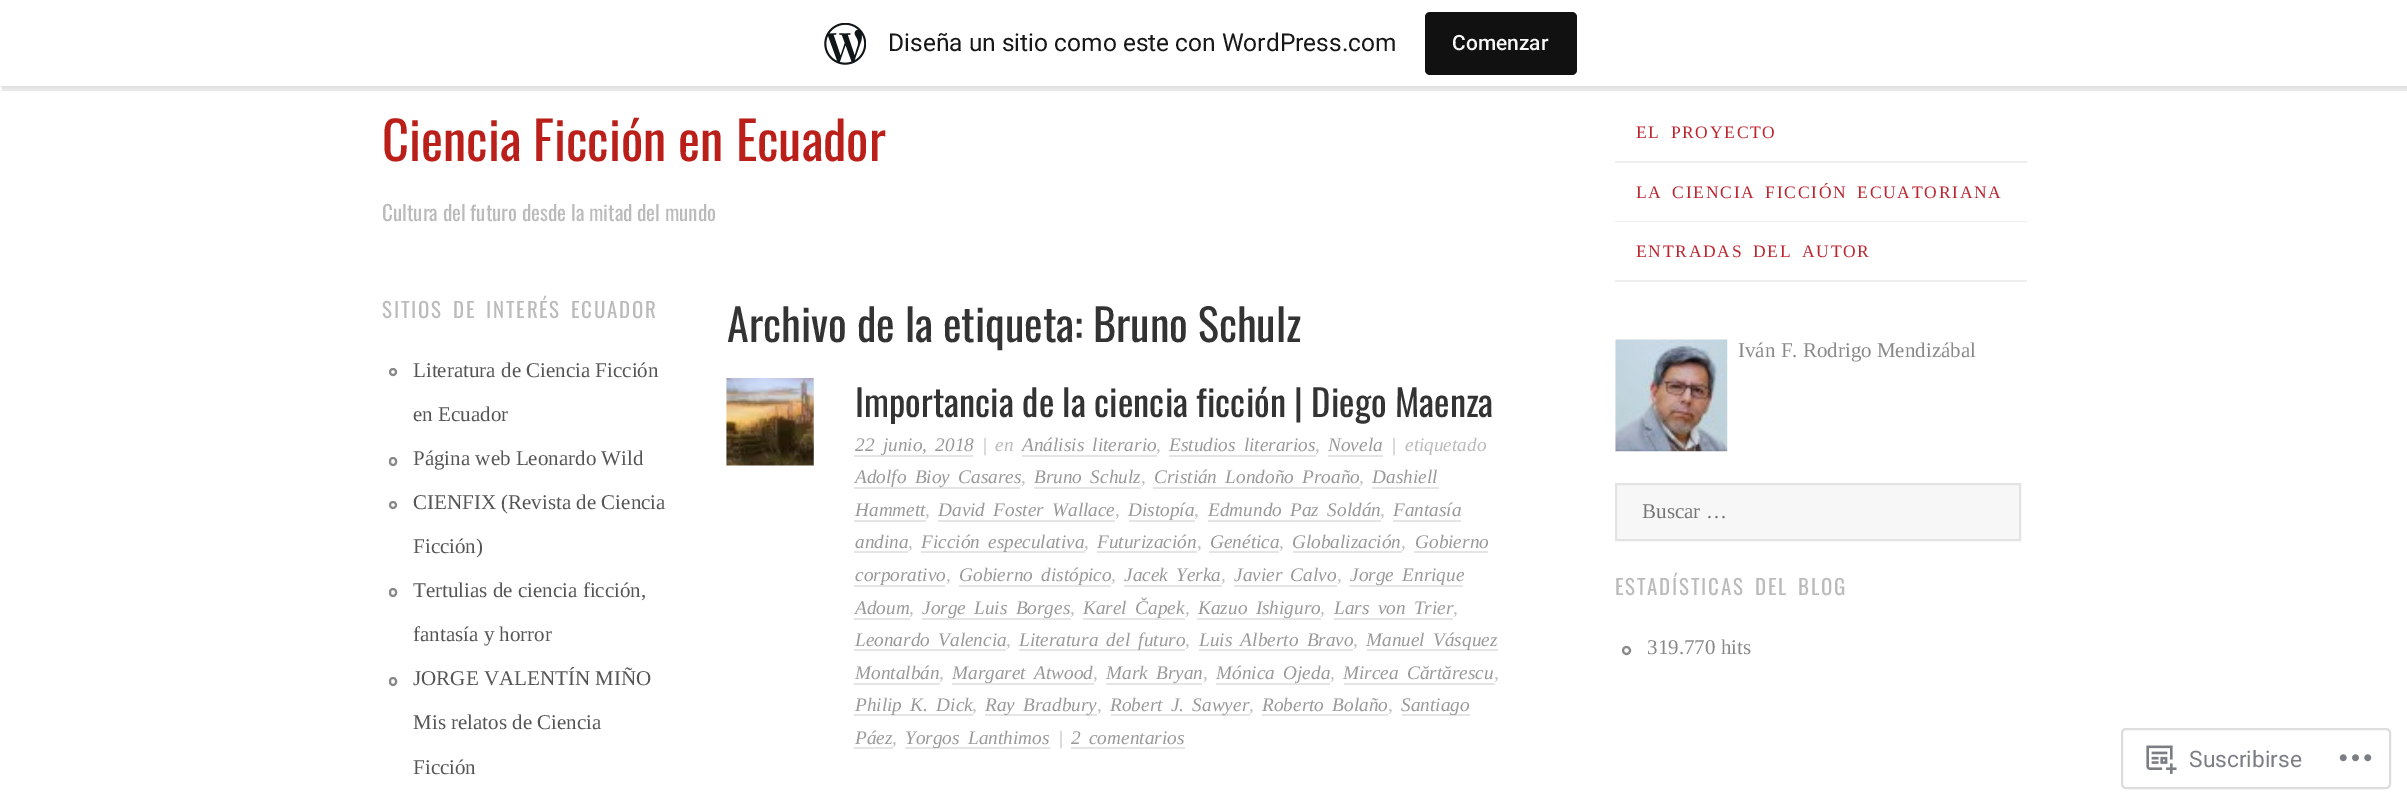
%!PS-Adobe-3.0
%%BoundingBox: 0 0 2407 806
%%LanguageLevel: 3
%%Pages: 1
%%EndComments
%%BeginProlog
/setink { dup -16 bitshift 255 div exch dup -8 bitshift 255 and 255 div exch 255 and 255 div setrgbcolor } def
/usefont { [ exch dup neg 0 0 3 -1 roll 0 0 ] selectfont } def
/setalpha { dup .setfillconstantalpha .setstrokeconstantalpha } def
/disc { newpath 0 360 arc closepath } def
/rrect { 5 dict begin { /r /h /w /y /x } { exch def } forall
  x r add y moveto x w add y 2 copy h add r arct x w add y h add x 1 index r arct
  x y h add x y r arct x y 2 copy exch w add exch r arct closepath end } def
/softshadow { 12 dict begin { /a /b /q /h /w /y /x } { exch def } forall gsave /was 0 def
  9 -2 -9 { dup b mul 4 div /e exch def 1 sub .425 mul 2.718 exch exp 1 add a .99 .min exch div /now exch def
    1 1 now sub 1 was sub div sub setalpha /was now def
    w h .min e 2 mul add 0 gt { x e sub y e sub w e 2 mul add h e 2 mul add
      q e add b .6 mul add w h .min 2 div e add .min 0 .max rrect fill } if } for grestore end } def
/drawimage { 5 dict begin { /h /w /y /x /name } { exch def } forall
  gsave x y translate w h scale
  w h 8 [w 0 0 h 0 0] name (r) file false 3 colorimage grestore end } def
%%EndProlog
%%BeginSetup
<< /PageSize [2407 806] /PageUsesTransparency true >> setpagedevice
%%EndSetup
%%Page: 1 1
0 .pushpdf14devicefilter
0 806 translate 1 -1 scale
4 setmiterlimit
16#FFFFFF setink
0 0 2407 806 rectfill
16#000000 setink
0 2 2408 86 0 2 0.05 softshadow
0.08 setalpha
2 86 moveto 2 91 lineto 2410 91 lineto 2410 5 lineto 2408 5 lineto 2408 86 lineto closepath fill
1 setalpha
16#FFFFFF setink
0 0 2407 86 rectfill
(img1.raw) 824 23 42 42 drawimage
/Roboto-Regular 24.5 usefont
16#171717 setink
888 51 moveto (Diseña un sitio como este con WordPress.com) show
16#111111 setink
1425 12 152 63 5 rrect fill
/Roboto-Medium 21 usefont
16#F6F7F7 setink
1452 50 moveto (Comenzar) show
/Oswald-Regular 52.5 usefont
16#BA1F1A setink
382 161 moveto (Ciencia Ficción en Ecuador) show
/Oswald-Regular 21 usefont
16#BBBBBB setink
382 221 moveto (Cultura del futuro desde la mitad del mundo) show
16#EEEEEE setink
1615 161 412 2 rectfill
/LiberationSerif-Regular 17.5 usefont
16#BB2530 setink
1636 138 moveto 3.5 0 32 1.75 0 (EL PROYECTO) awidthshow
16#EEEEEE setink
1615 221 412 1 rectfill
16#BB2530 setink
1636 198 moveto 3.5 0 32 1.75 0 (LA CIENCIA FICCIÓN ECUATORIANA) awidthshow
16#EEEEEE setink
1615 280 412 2 rectfill
16#BB2530 setink
1636 257 moveto 3.5 0 32 1.75 0 (ENTRADAS DEL AUTOR) awidthshow
/Oswald-Regular 21 usefont
16#BBBBBB setink
382 318 moveto 3.5 0 32 1.75 0 (SITIOS DE INTERÉS ECUADOR) awidthshow
16#888888 setink
2 setlinewidth
393 372 3 disc stroke
/LiberationSerif-Regular 21 usefont
16#555555 setink
413 377 moveto (Literatura de Ciencia Ficción) show
413 421 moveto (en Ecuador) show
16#888888 setink
390 458 6 7 3 rrect stroke
16#555555 setink
413 465 moveto (Página web Leonardo Wild) show
16#888888 setink
393 505 3 disc stroke
16#555555 setink
413 509 moveto (CIENFIX \(Revista de Ciencia) show
413 553 moveto (Ficción\)) show
16#888888 setink
390 589 6 7 3 rrect stroke
16#555555 setink
413 597 moveto (Tertulias de ciencia ficción,) show
413 641 moveto (fantasía y horror) show
16#888888 setink
390 678 6 7 3 rrect stroke
16#555555 setink
[
    [(JORGE VALENTÍN MIÑO) 413 685]
    [(Mis relatos de Ciencia) 413 729]
    [(Ficción) 413 774]
] { aload pop moveto show } forall
/Oswald-Regular 44.1 usefont
16#333333 setink
727 342 moveto (Archivo de la etiqueta: Bruno Schulz) show
(img2.raw) 726 378 88 88 drawimage
/Oswald-Regular 36.75 usefont
855 417 moveto (Importancia de la ciencia ficción | Diego Maenza) show
16#E5E5E5 setink
854 455 119 2 rectfill
/LiberationSerif-Italic 19.25 usefont
16#999999 setink
855 451 moveto 3.5 0 32 (22 junio, 2018) widthshow
16#BBBBBB setink
982 451 moveto (|) show
995 451 moveto (en) show
16#999999 setink
1022 451 moveto 3.5 0 32 (Análisis literario) widthshow
16#BBBBBB setink
1156 451 moveto (,) show
16#E5E5E5 setink
1022 455 135 2 rectfill
16#999999 setink
1169 451 moveto 3.5 0 32 (Estudios literarios) widthshow
16#BBBBBB setink
1315 451 moveto (,) show
16#E5E5E5 setink
1169 455 147 2 rectfill
1328 455 55 2 rectfill
16#999999 setink
1328 451 moveto (Novela) show
16#BBBBBB setink
1391 451 moveto (|) show
1405 451 moveto (etiquetado) show
16#E5E5E5 setink
854 487 166 2 rectfill
16#999999 setink
855 483 moveto 3.5 0 32 (Adolfo Bioy Casares) widthshow
16#BBBBBB setink
1021 483 moveto (,) show
16#999999 setink
1034 483 moveto 3.5 0 32 (Bruno Schulz) widthshow
16#BBBBBB setink
1141 483 moveto (,) show
16#E5E5E5 setink
1034 487 107 2 rectfill
16#999999 setink
1154 483 moveto 3.5 0 32 (Cristián Londoño Proaño) widthshow
16#BBBBBB setink
1359 483 moveto (,) show
16#E5E5E5 setink
1153 487 207 2 rectfill
1372 487 67 2 rectfill
16#999999 setink
1372 483 moveto (Dashiell) show
855 516 moveto (Hammett) show
16#BBBBBB setink
925 516 moveto (,) show
16#E5E5E5 setink
854 520 72 2 rectfill
16#999999 setink
938 516 moveto 3.5 0 32 (David Foster Wallace) widthshow
16#BBBBBB setink
1115 516 moveto (,) show
16#E5E5E5 setink
938 520 177 2 rectfill
1129 520 66 2 rectfill
16#999999 setink
1128 516 moveto (Distopía) show
16#BBBBBB setink
1194 516 moveto (,) show
16#999999 setink
1208 516 moveto 3.5 0 32 (Edmundo Paz Soldán) widthshow
16#BBBBBB setink
1380 516 moveto (,) show
16#E5E5E5 setink
1208 520 173 2 rectfill
1393 520 68 2 rectfill
16#999999 setink
1393 516 moveto (Fantasía) show
855 548 moveto (andina) show
16#BBBBBB setink
908 548 moveto (,) show
16#E5E5E5 setink
854 551 54 2 rectfill
921 551 164 2 rectfill
16#999999 setink
921 548 moveto 3.5 0 32 (Ficción especulativa) widthshow
16#BBBBBB setink
1084 548 moveto (,) show
16#999999 setink
1097 548 moveto (Futurización) show
16#BBBBBB setink
1197 548 moveto (,) show
16#E5E5E5 setink
1097 551 100 2 rectfill
16#999999 setink
1210 548 moveto (Genética) show
16#BBBBBB setink
1279 548 moveto (,) show
16#E5E5E5 setink
1209 551 70 2 rectfill
16#999999 setink
1292 548 moveto (Globalización) show
16#BBBBBB setink
1401 548 moveto (,) show
16#E5E5E5 setink
1293 551 109 2 rectfill
1414 551 74 2 rectfill
16#999999 setink
1415 548 moveto (Gobierno) show
16#E5E5E5 setink
854 585 91 2 rectfill
16#999999 setink
855 581 moveto (corporativo) show
16#BBBBBB setink
946 581 moveto (,) show
16#E5E5E5 setink
959 585 152 2 rectfill
16#999999 setink
959 581 moveto 3.5 0 32 (Gobierno distópico) widthshow
16#BBBBBB setink
1111 581 moveto (,) show
16#999999 setink
1124 581 moveto 3.5 0 32 (Jacek Yerka) widthshow
16#BBBBBB setink
1221 581 moveto (,) show
16#E5E5E5 setink
1124 585 98 2 rectfill
16#999999 setink
1234 581 moveto 3.5 0 32 (Javier Calvo) widthshow
16#BBBBBB setink
1337 581 moveto (,) show
16#E5E5E5 setink
1234 585 103 2 rectfill
1349 585 114 2 rectfill
16#999999 setink
1350 581 moveto 3.5 0 32 (Jorge Enrique) widthshow
855 614 moveto (Adoum) show
16#BBBBBB setink
909 614 moveto (,) show
16#E5E5E5 setink
854 618 56 2 rectfill
922 618 149 2 rectfill
16#999999 setink
922 614 moveto 3.5 0 32 (Jorge Luis Borges) widthshow
16#BBBBBB setink
1070 614 moveto (,) show
16#E5E5E5 setink
1083 618 102 2 rectfill
16#999999 setink
1083 614 moveto 3.5 0 32 (Karel Čapek) widthshow
16#BBBBBB setink
1185 614 moveto (,) show
16#E5E5E5 setink
1197 618 124 2 rectfill
16#999999 setink
1198 614 moveto 3.5 0 32 (Kazuo Ishiguro) widthshow
16#BBBBBB setink
1320 614 moveto (,) show
16#999999 setink
1334 614 moveto 3.5 0 32 (Lars von Trier) widthshow
16#BBBBBB setink
1453 614 moveto (,) show
16#E5E5E5 setink
1334 618 119 2 rectfill
16#999999 setink
855 646 moveto 3.5 0 32 (Leonardo Valencia) widthshow
16#BBBBBB setink
1006 646 moveto (,) show
16#E5E5E5 setink
854 649 152 2 rectfill
1019 649 166 2 rectfill
16#999999 setink
1019 646 moveto 3.5 0 32 (Literatura del futuro) widthshow
16#BBBBBB setink
1185 646 moveto (,) show
16#999999 setink
1199 646 moveto 3.5 0 32 (Luis Alberto Bravo) widthshow
16#BBBBBB setink
1353 646 moveto (,) show
16#E5E5E5 setink
1199 649 154 2 rectfill
1367 649 131 2 rectfill
16#999999 setink
1366 646 moveto 3.5 0 32 (Manuel Vásquez) widthshow
855 679 moveto (Montalbán) show
16#BBBBBB setink
939 679 moveto (,) show
16#E5E5E5 setink
854 683 86 2 rectfill
952 683 142 2 rectfill
16#999999 setink
952 679 moveto 3.5 0 32 (Margaret Atwood) widthshow
16#BBBBBB setink
1093 679 moveto (,) show
16#E5E5E5 setink
1106 683 96 2 rectfill
16#999999 setink
1106 679 moveto 3.5 0 32 (Mark Bryan) widthshow
16#BBBBBB setink
1203 679 moveto (,) show
16#E5E5E5 setink
1216 683 114 2 rectfill
16#999999 setink
1216 679 moveto 3.5 0 32 (Mónica Ojeda) widthshow
16#BBBBBB setink
1330 679 moveto (,) show
16#999999 setink
1343 679 moveto 3.5 0 32 (Mircea Cărtărescu) widthshow
16#BBBBBB setink
1494 679 moveto (,) show
16#E5E5E5 setink
1344 683 151 2 rectfill
854 714 119 2 rectfill
16#999999 setink
855 711 moveto 3.5 0 32 (Philip K. Dick) widthshow
16#BBBBBB setink
972 711 moveto (,) show
16#E5E5E5 setink
985 714 112 2 rectfill
16#999999 setink
985 711 moveto 3.5 0 32 (Ray Bradbury) widthshow
16#BBBBBB setink
1097 711 moveto (,) show
16#E5E5E5 setink
1111 714 139 2 rectfill
16#999999 setink
1110 711 moveto 3.5 0 32 (Robert J. Sawyer) widthshow
16#BBBBBB setink
1249 711 moveto (,) show
16#999999 setink
1262 711 moveto 3.5 0 32 (Roberto Bolaño) widthshow
16#BBBBBB setink
1388 711 moveto (,) show
16#E5E5E5 setink
1262 714 126 2 rectfill
1402 714 68 2 rectfill
16#999999 setink
1401 711 moveto (Santiago) show
855 744 moveto (Páez) show
16#BBBBBB setink
892 744 moveto (,) show
16#E5E5E5 setink
854 747 39 2 rectfill
905 747 145 2 rectfill
16#999999 setink
905 744 moveto 3.5 0 32 (Yorgos Lanthimos) widthshow
16#BBBBBB setink
1058 744 moveto (|) show
16#999999 setink
1071 744 moveto 3.5 0 32 (2 comentarios) widthshow
16#E5E5E5 setink
1071 747 114 2 rectfill
(img3.raw) 1615 339 113 113 drawimage
/LiberationSerif-Regular 21 usefont
16#888888 setink
1738 357 moveto (Iván F. Rodrigo Mendizábal) show
16#F7F7F7 setink
1616 484 moveto 2020 484 lineto 2020 540 lineto 1616 540 lineto closepath gsave fill grestore
16#E3E3E3 setink
stroke
16#757575 setink
1642 518 moveto (Buscar …) show
/Oswald-Regular 21 usefont
16#BBBBBB setink
1615 595 moveto 3.5 0 32 1.75 0 (ESTADÍSTICAS DEL BLOG) awidthshow
16#888888 setink
1626.5 650.5 3.5 disc stroke
/LiberationSerif-Regular 21 usefont
1647 654 moveto (319.770 hits) show
16#DDDDDF setink
2122 729 268 59 4 rrect stroke
(img4.raw) 2146 745 31 29 drawimage
/Roboto-Regular 22.75 usefont
16#7B7F85 setink
2189 767 moveto (Suscribirse) show
(img5.raw) 2339 754 33 8 drawimage
.poppdf14devicefilter showpage
%%EOF
